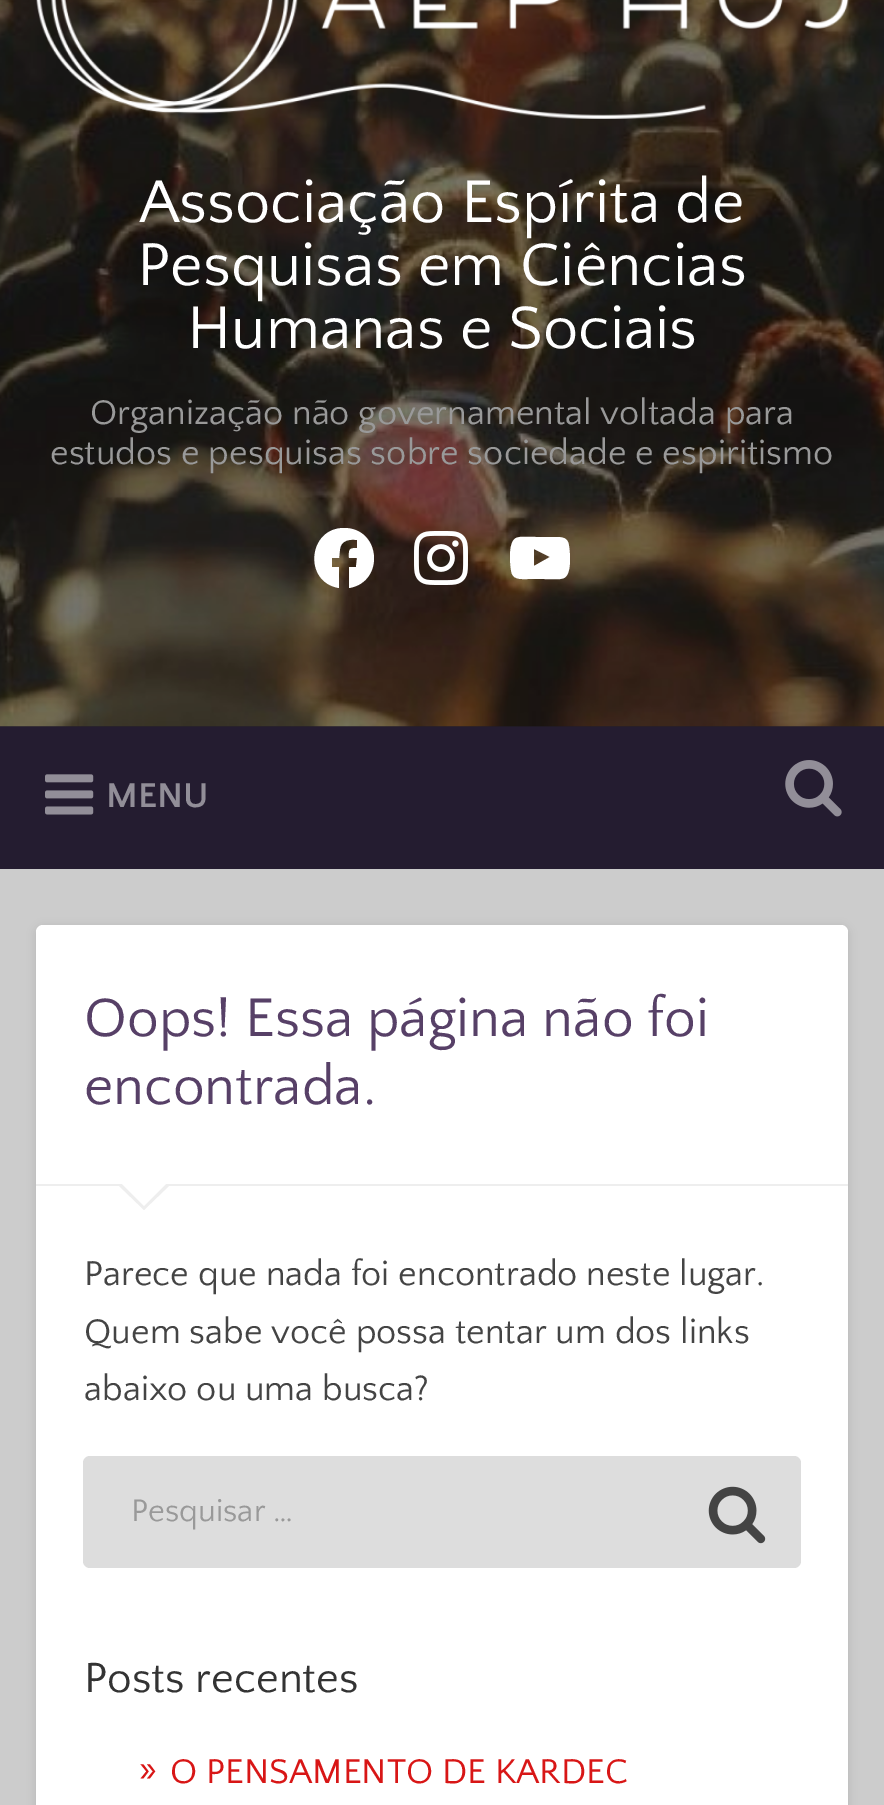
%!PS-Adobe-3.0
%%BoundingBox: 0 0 884 1805
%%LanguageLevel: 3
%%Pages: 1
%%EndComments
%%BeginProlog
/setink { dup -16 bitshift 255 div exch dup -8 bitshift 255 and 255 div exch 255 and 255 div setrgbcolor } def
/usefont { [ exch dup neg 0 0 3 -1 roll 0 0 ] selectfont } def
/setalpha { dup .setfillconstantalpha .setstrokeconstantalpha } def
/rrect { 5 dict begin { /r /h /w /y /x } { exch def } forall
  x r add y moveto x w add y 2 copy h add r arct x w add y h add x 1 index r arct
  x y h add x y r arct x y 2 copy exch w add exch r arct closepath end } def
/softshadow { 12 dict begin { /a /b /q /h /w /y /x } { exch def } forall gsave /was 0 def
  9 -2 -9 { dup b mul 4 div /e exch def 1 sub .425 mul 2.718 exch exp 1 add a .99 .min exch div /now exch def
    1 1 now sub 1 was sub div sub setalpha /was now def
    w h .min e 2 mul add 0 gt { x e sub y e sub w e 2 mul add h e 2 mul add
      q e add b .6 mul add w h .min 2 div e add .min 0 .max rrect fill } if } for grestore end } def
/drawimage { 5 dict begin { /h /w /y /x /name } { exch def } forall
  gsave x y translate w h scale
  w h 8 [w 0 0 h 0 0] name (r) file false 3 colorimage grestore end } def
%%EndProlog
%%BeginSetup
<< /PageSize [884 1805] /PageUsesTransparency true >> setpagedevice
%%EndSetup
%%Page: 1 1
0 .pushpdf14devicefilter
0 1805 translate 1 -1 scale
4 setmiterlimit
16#CCCCCC setink
0 0 884 1805 rectfill
16#221C2B setink
0 726 884 1 rectfill
(img1.raw) 0 0 884 727 drawimage
(img2.raw) 36 0 813 119 drawimage
/QuattrocentoSans-Regular 63 usefont
16#FFFFFF setink
[
    [(Associação Espírita de) 139 222]
    [(Pesquisas em Ciências) 137 285]
    [(Humanas e Sociais) 187 348]
] { aload pop moveto show } forall
/QuattrocentoSans-Regular 36 usefont
16#999999 setink
90 424 moveto (Organização não governamental voltada para) show
50 464 moveto (estudos e pesquisas sobre sociedade e espiritismo) show
16#FFFFFF setink
344 528 moveto 308 528 303 582 339 588 curveto 339 567 lineto 332 567 lineto 332 558 lineto 339 558 lineto 340 549 lineto 341 540 350 539 357 540 curveto 357 548 lineto 348 548 349 550 349 558 curveto 357 558 lineto 356 567 lineto 349 567 lineto 349 588 lineto 385 582 381 528 344 528 curveto closepath fill
(img3.raw) 414 531 54 54 drawimage
569 546 moveto 568 537 562 537 554 537 curveto 536 537 lineto 530 537 520 536 516 538 curveto 508 542 510 563 511 570 curveto 512 580 520 579 528 579 curveto 544 579 lineto 550 579 560 580 564 578 curveto 572 574 570 553 569 546 curveto closepath 534 566 moveto 534 549 lineto 550 557 lineto closepath fill
16#241C30 setink
0 727 884 142 rectfill
(img4.raw) 45 774 49 41 drawimage
/QuattrocentoSans-Bold 36 usefont
16#928E98 setink
106 807 moveto (MENU) show
(img5.raw) 785 760 57 57 drawimage
16#000000 setink
36 927 812 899 7 4.5 0.1 softshadow
16#FFFFFF setink
36 925 812 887 7 rrect fill
16#EEEEEE setink
36 1184 812 2 rectfill
/QuattrocentoSans-Regular 56.75 usefont
16#574067 setink
84 1036 moveto (Oops! Essa página não foi) show
84 1104 moveto (encontrada.) show
16#EEEEEE setink
117 1184 moveto 171 1184 lineto 144 1210 lineto closepath fill
16#FFFFFF setink
119 1181 moveto 169 1181 lineto 144 1206 lineto closepath fill
/QuattrocentoSans-Regular 36 usefont
16#444444 setink
[
    [(Parece que nada foi encontrado neste lugar.) 84 1285]
    [(Quem sabe você possa tentar um dos links) 84 1343]
    [(abaixo ou uma busca?) 84 1400]
] { aload pop moveto show } forall
16#DDDDDD setink
83 1456 718 112 7 rrect fill
/QuattrocentoSans-Regular 32.5 usefont
16#999999 setink
131 1521 moveto (Pesquisar …) show
(img6.raw) 708 1486 58 58 drawimage
/QuattrocentoSans-Regular 44 usefont
16#333333 setink
84 1692 moveto (Posts recentes) show
/QuattrocentoSans-Regular 40 usefont
16#D81616 setink
138 1781 moveto (») show
/QuattrocentoSans-Regular 36 usefont
170 1783 moveto (O PENSAMENTO DE KARDEC) show
.poppdf14devicefilter showpage
%%EOF
